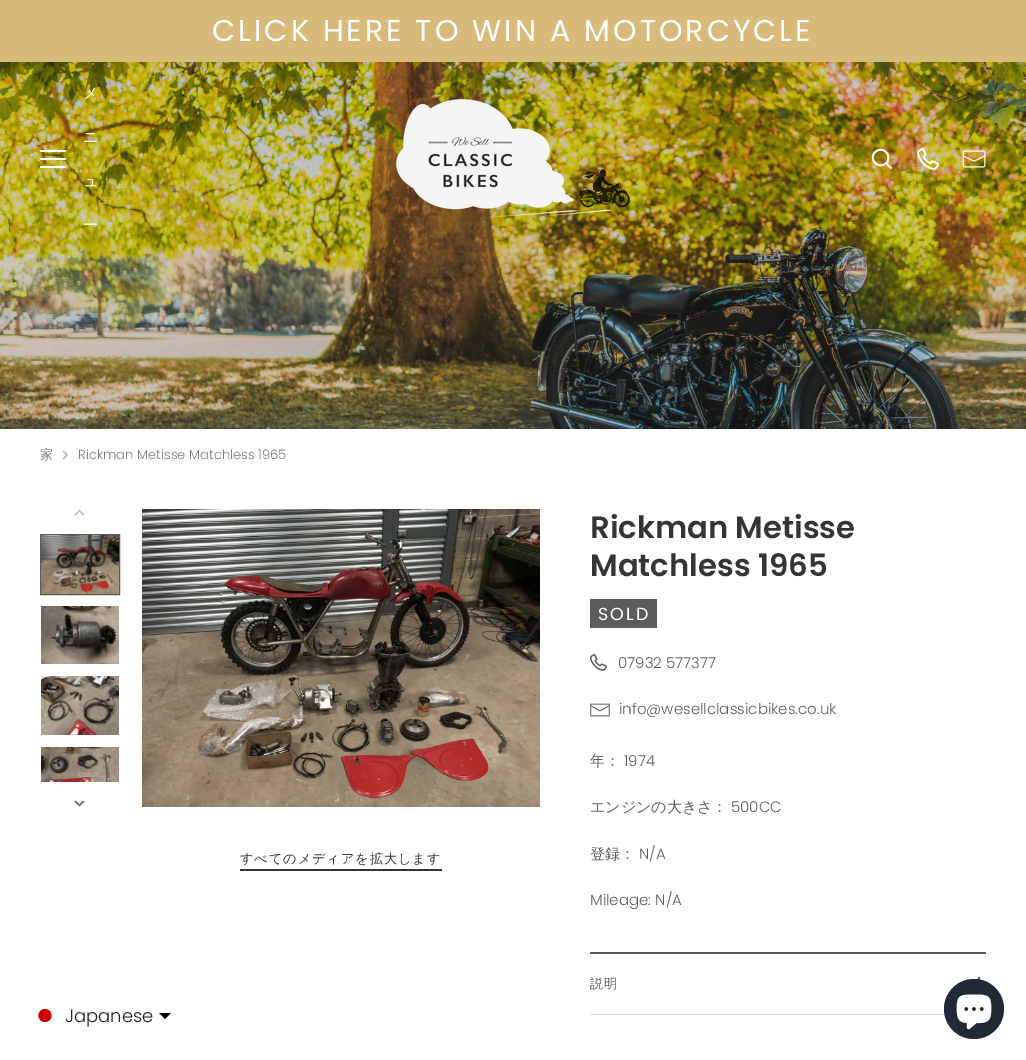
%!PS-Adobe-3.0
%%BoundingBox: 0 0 1026 1060
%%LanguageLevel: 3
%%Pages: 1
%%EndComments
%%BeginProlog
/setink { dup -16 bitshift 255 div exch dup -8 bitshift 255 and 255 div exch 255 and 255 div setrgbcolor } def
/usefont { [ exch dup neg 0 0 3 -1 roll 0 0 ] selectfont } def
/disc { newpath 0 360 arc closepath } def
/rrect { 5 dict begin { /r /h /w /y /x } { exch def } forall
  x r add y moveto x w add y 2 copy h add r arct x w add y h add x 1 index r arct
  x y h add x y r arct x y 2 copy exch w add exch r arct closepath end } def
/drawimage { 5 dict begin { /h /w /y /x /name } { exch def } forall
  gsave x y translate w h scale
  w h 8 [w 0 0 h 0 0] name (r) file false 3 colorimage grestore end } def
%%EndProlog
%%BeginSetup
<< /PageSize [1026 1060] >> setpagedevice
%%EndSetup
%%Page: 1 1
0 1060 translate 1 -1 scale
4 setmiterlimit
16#FFFFFF setink
0 0 1026 1060 rectfill
16#D8BA7A setink
0 0 1026 62 rectfill
/Poppins-Regular 30 usefont
16#FFFFFF setink
212 41 moveto 3 0 (CLICK HERE TO WIN A MOTORCYCLE) ashow
(img5.raw) 0 62 1026 367 drawimage
40 150 26 2 1 rrect fill
40 158 26 2 1 rrect fill
40 166 26 2 1 rrect fill
/WenQuanYiZenHei-Medium 15 usefont
[
    [(メ) 83 98]
    [(ニ) 83 142]
    [(ュ) 83 186]
    [(ー) 83 230]
] { aload pop moveto show } forall
(img1.raw) 396 99 234 119 drawimage
(img2.raw) 871 148 22 22 drawimage
(img3.raw) 917 148 22 22 drawimage
(img4.raw) 962 150 24 18 drawimage
/WenQuanYiZenHei-Medium 13.1 usefont
16#7D7D7D setink
40 459 moveto (家) show
(img6.raw) 62 450 6 10 drawimage
/Poppins-Light 13.1 usefont
78 459 moveto (Rickman Metisse Matchless 1965) show
(img7.raw) 74 509 11 7 drawimage
(img8.raw) 74 800 11 7 drawimage
16#5C5C5C setink
40.5 534.5 79 60 rectstroke
(img9.raw) 41 535 78 59 drawimage
(img10.raw) 41 606 78 58 drawimage
(img11.raw) 41 676 78 59 drawimage
(img12.raw) 41 747 78 35 drawimage
(img13.raw) 142 509 398 298 drawimage
/WenQuanYiZenHei-Medium 13.1 usefont
16#343534 setink
240 863 moveto 1 0 (すべてのメディアを拡大します) ashow
240 869 202 2 rectfill
/Poppins-SemiBold 30.75 usefont
590 538 moveto (Rickman Metisse) show
590 576 moveto (Matchless 1965) show
16#5C5C5C setink
590 599 67 29 rectfill
/Poppins-Regular 17.5 usefont
16#FFFFFF setink
598 620 moveto 2 0 (SOLD) ashow
(img14.raw) 590 654 17 17 drawimage
/Poppins-Light 15 usefont
16#5C5C5C setink
618 668 moveto (07932 577377) show
(img15.raw) 590 703 20 14 drawimage
619 714 moveto (info@wesellclassicbikes.co.uk) show
/WenQuanYiZenHei-Medium 15 usefont
590 766 moveto (年：) show
/Poppins-Light 15 usefont
624 766 moveto (1974) show
/WenQuanYiZenHei-Medium 15 usefont
590 812 moveto (エンジンの大きさ：) show
/Poppins-Light 15 usefont
731 812 moveto (500CC) show
/WenQuanYiZenHei-Medium 15 usefont
590 859 moveto (登録：) show
/Poppins-Light 15 usefont
639 859 moveto (N/A) show
590 905 moveto (Mileage: N/A) show
590 952 396 2 rectfill
16#DEDEDE setink
590 1014 355 1 rectfill
/WenQuanYiZenHei-Medium 13.1 usefont
16#5C5C5C setink
590 988 moveto 1 0 (説明) ashow
978 977 2 3 rectfill
16#D30000 setink
45 1015.5 6.5 disc fill
/Poppins-Light 18 usefont
16#202223 setink
65 1022 moveto (Japanese) show
16#000000 setink
159 1013 moveto 171 1013 lineto 165 1019 lineto closepath fill
16#202A36 setink
974 1009 30 disc fill
(img16.raw) 956 994 36 36 drawimage
showpage
%%EOF
